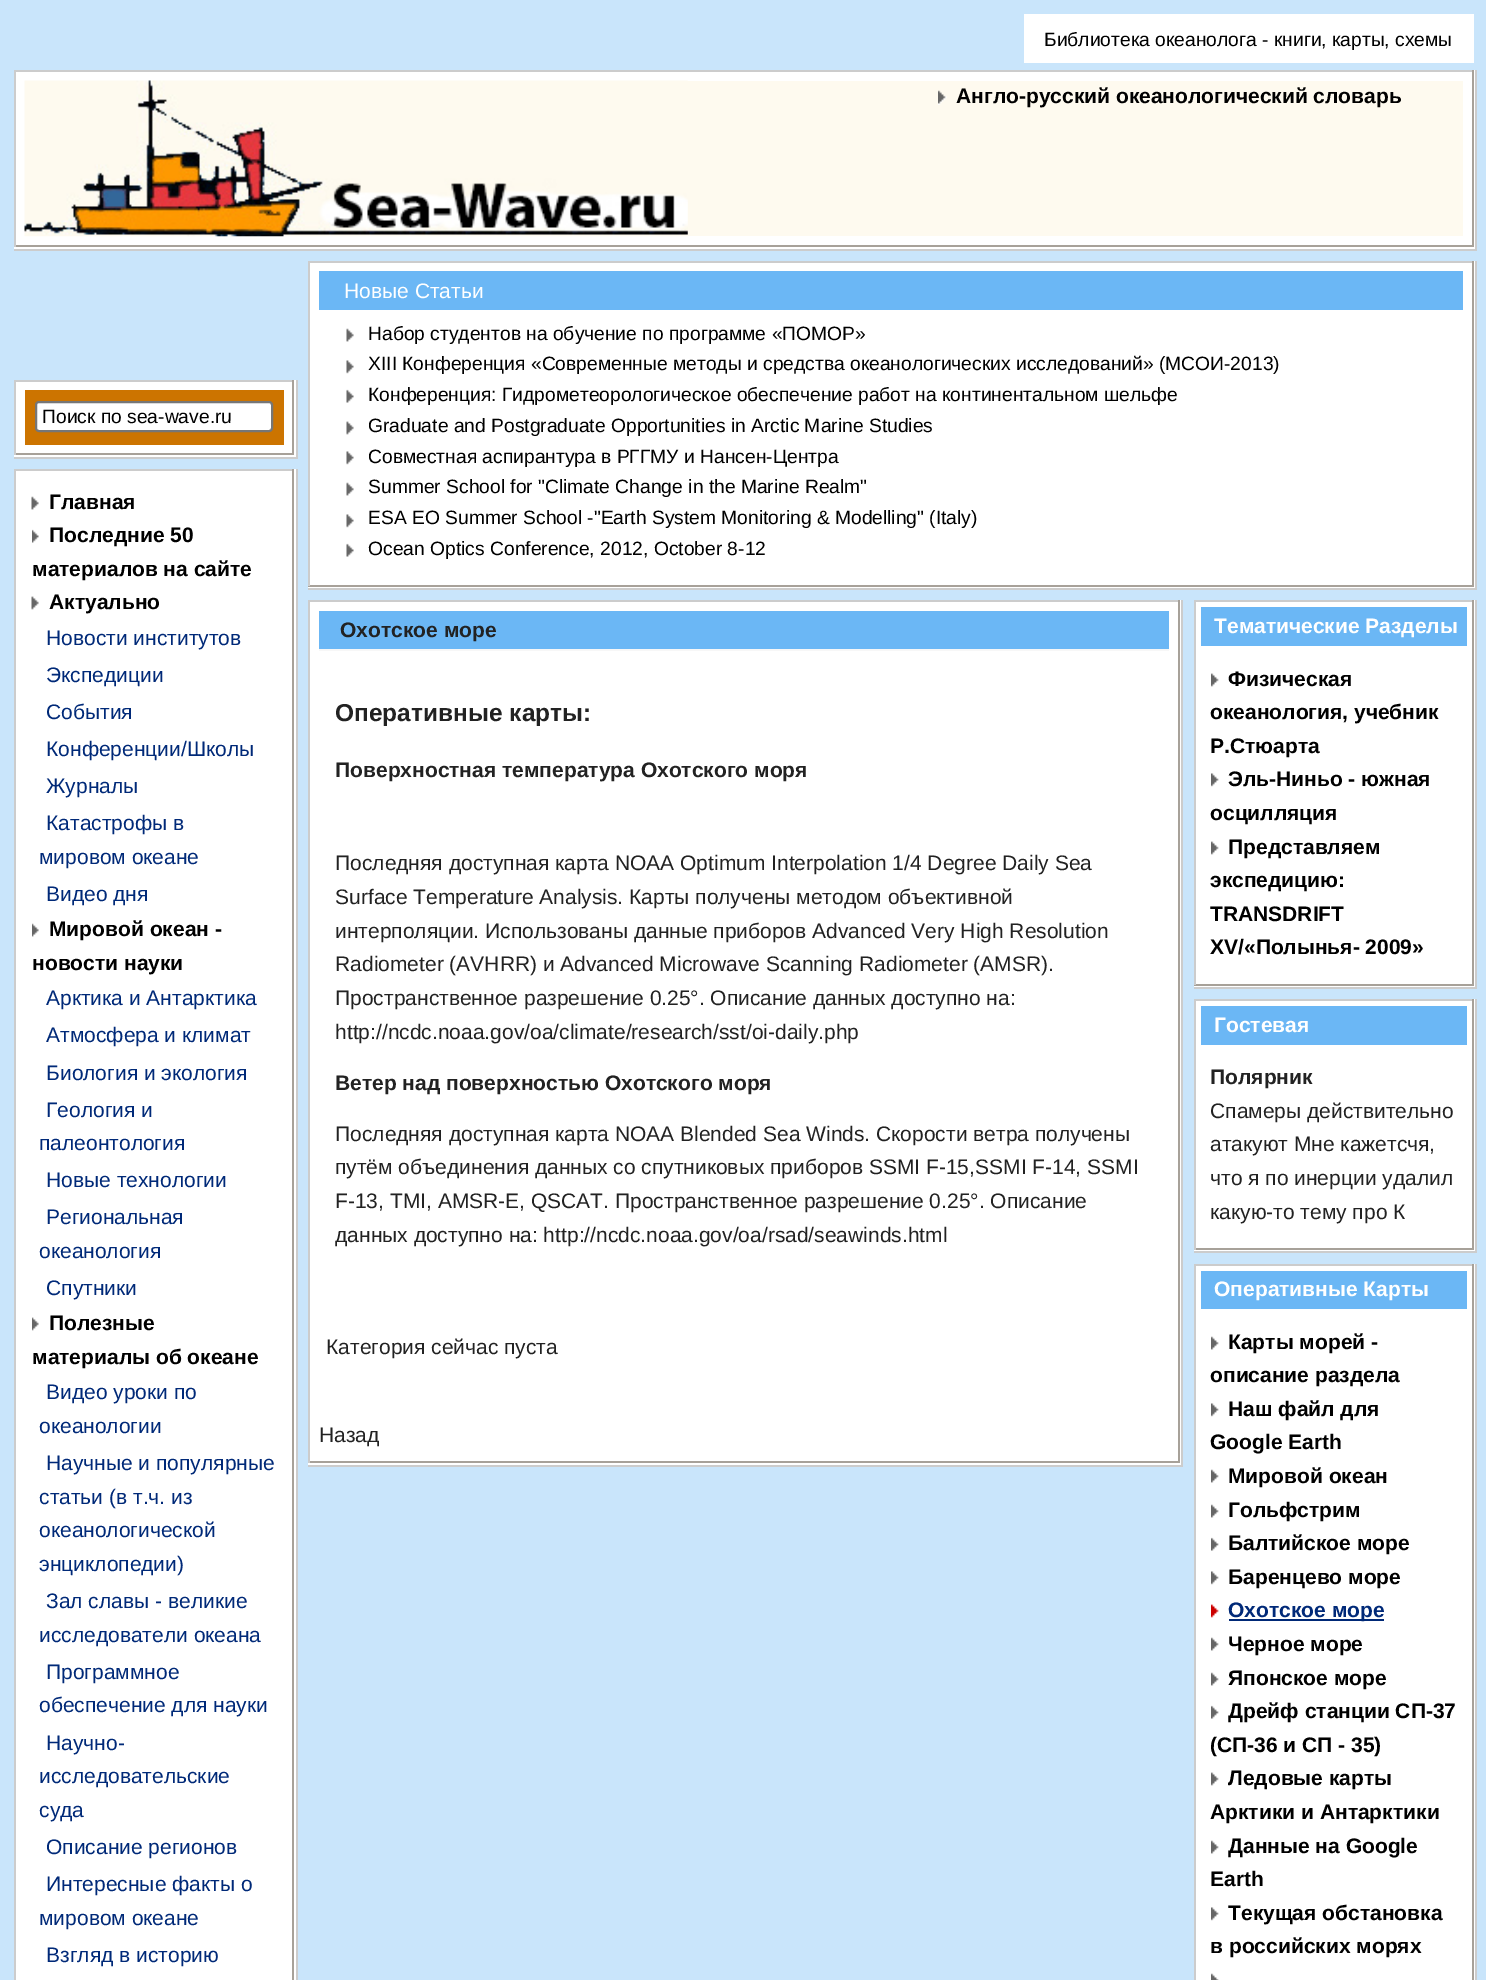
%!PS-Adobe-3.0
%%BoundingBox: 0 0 1486 1980
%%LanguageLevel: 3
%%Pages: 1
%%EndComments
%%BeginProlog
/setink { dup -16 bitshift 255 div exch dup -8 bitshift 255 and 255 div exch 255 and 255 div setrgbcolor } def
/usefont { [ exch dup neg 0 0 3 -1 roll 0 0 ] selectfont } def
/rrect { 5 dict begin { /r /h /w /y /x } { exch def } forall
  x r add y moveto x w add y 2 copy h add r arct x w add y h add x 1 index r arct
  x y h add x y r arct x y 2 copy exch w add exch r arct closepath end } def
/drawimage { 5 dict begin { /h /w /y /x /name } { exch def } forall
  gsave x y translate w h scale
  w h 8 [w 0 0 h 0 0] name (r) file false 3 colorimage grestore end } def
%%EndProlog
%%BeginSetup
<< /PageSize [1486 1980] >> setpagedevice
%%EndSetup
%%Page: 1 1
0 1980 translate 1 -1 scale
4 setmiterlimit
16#C9E5FB setink
0 0 1486 1980 rectfill
16#FFFFFF setink
1024 14 450 49 rectfill
/LiberationSans-Regular 19.25 usefont
16#000000 setink
1044 46 moveto (Библиотека океанолога - книги, карты, схемы) show
[
    [14 70 1461 179 16#FFFFFF]
    [1475 70 2 180 16#CCCCCC]
    [14 249 1463 2 16#CCCCCC]
    [14 70 1460 2 16#CCCCCC]
    [1472 70 2 177 16#A7A199]
    [14 245 1460 2 16#A7A199]
    [14 70 2 177 16#CCCCCC]
    [687 81 776 155 16#FEFAEF]
] { aload pop setink rectfill } forall
(img1.raw) 24 80 664 157 drawimage
(img2.raw) 938 90 9 15 drawimage
/LiberationSans-Bold 21 usefont
16#000000 setink
956 103 moveto (Англо-русский океанологический словарь) show
[
    [14 380 282 77 16#FFFFFF]
    [296 380 2 79 16#CCCCCC]
    [14 457 284 2 16#CCCCCC]
    [14 380 280 2 16#CCCCCC]
    [292 380 2 75 16#A7A199]
    [14 453 280 2 16#A7A199]
    [14 380 2 75 16#CCCCCC]
    [25 390 259 55 16#CC7400]
] { aload pop setink rectfill } forall
16#FFFFFF setink
36 402 236 29 3 rrect gsave fill grestore
16#767676 setink
2 setlinewidth
stroke
/LiberationSans-Regular 19.25 usefont
16#000000 setink
42 423 moveto (Поиск по sea-wave.ru) show
[
    [16 469 280 1511 16#FFFFFF]
    [296 469 2 1511 16#CCCCCC]
    [14 469 280 2 16#CCCCCC]
    [292 469 2 1511 16#A7A199]
    [14 469 2 1511 16#CCCCCC]
] { aload pop setink rectfill } forall
(img3.raw) 31 496 8 14 drawimage
/LiberationSans-Bold 21 usefont
16#000000 setink
49 509 moveto (Главная) show
(img4.raw) 32 529 7 14 drawimage
49 542 moveto (Последние 50) show
32 576 moveto (материалов на сайте) show
(img5.raw) 31 596 8 14 drawimage
49 609 moveto (Актуально) show
/LiberationSans-Regular 21 usefont
16#002978 setink
[
    [(Новости институтов) 46 645]
    [(Экспедиции) 46 682]
    [(События) 46 719]
    [(Конференции/Школы) 46 756]
    [(Журналы) 46 793]
    [(Катастрофы в) 46 830]
    [(мировом океане) 39 864]
    [(Видео дня) 46 901]
] { aload pop moveto show } forall
(img6.raw) 32 923 7 14 drawimage
/LiberationSans-Bold 21 usefont
16#000000 setink
49 936 moveto (Мировой океан -) show
32 970 moveto (новости науки) show
/LiberationSans-Regular 21 usefont
16#002978 setink
[
    [(Арктика и Антарктика) 46 1005]
    [(Атмосфера и климат) 46 1042]
    [(Биология и экология) 46 1080]
    [(Геология и) 46 1117]
    [(палеонтология) 39 1150]
    [(Новые технологии) 46 1187]
    [(Региональная) 46 1224]
    [(океанология) 39 1258]
    [(Спутники) 46 1295]
] { aload pop moveto show } forall
(img7.raw) 32 1317 7 14 drawimage
/LiberationSans-Bold 21 usefont
16#000000 setink
49 1330 moveto (Полезные) show
32 1364 moveto (материалы об океане) show
/LiberationSans-Regular 21 usefont
16#002978 setink
[
    [(Видео уроки по) 46 1399]
    [(океанологии) 39 1433]
    [(Научные и популярные) 46 1470]
    [(статьи \(в т.ч. из) 39 1504]
    [(океанологической) 39 1537]
    [(энциклопедии\)) 39 1571]
    [(Зал славы - великие) 46 1608]
    [(исследователи океана) 39 1642]
    [(Программное) 46 1679]
    [(обеспечение для науки) 39 1712]
    [(Научно-) 46 1750]
    [(исследовательские) 39 1783]
    [(суда) 39 1817]
    [(Описание регионов) 46 1854]
    [(Интересные факты о) 46 1891]
    [(мировом океане) 39 1925]
    [(Взгляд в историю) 46 1962]
] { aload pop moveto show } forall
[
    [308 261 1167 327 16#FFFFFF]
    [1475 261 2 329 16#CCCCCC]
    [308 588 1169 2 16#CCCCCC]
    [308 261 1166 2 16#CCCCCC]
    [1472 261 2 325 16#A7A199]
    [308 585 1166 2 16#A7A199]
    [308 261 2 325 16#CCCCCC]
    [319 271 1144 39 16#6BB7F5]
] { aload pop setink rectfill } forall
16#FFFFFF setink
344 298 moveto (Новые Статьи) show
(img3.raw) 346 328 8 14 drawimage
/LiberationSans-Regular 19.25 usefont
16#000000 setink
368 340 moveto (Набор студентов на обучение по программе «ПОМОР») show
(img8.raw) 346 360 8 14 drawimage
368 370 moveto (XIII Конференция «Современные методы и средства океанологических исследований» \(МСОИ-2013\)) show
(img9.raw) 346 389 8 14 drawimage
368 401 moveto (Конференция: Гидрометеорологическое обеспечение работ на континентальном шельфе) show
(img5.raw) 346 421 8 14 drawimage
368 432 moveto (Graduate and Postgraduate Opportunities in Arctic Marine Studies) show
(img8.raw) 346 451 8 14 drawimage
368 463 moveto (Совместная аспирантура в РГГМУ и Нансен-Центра) show
(img3.raw) 346 482 8 14 drawimage
368 493 moveto (Summer School for "Climate Change in the Marine Realm") show
(img8.raw) 346 514 8 14 drawimage
368 524 moveto (ESA EO Summer School -"Earth System Monitoring & Modelling" \(Italy\)) show
(img9.raw) 346 543 8 14 drawimage
368 555 moveto (Ocean Optics Conference, 2012, October 8-12) show
[
    [308 600 873 865 16#FFFFFF]
    [1181 600 2 867 16#CCCCCC]
    [308 1465 875 2 16#CCCCCC]
    [308 600 872 2 16#CCCCCC]
    [1178 600 2 863 16#A7A199]
    [308 1461 872 2 16#A7A199]
    [308 600 2 863 16#CCCCCC]
    [319 611 850 38 16#6BB7F5]
    [319 649 850 2 16#F7F7F7]
] { aload pop setink rectfill } forall
/LiberationSans-Bold 21 usefont
16#222222 setink
340 637 moveto (Охотское море) show
/LiberationSans-Bold 24.5 usefont
335 721 moveto (Оперативные карты:) show
/LiberationSans-Bold 21 usefont
335 777 moveto (Поверхностная температура Охотского моря) show
/LiberationSans-Regular 21 usefont
[
    [(Последняя доступная карта NOAA Optimum Interpolation 1/4 Degree Daily Sea) 335 870]
    [(Surface Temperature Analysis. Карты получены методом объективной) 335 904]
    [(интерполяции. Использованы данные приборов Advanced Very High Resolution) 335 938]
    [(Radiometer \(AVHRR\) и Advanced Microwave Scanning Radiometer \(AMSR\).) 335 971]
    [(Пространственное разрешение 0.25°. Описание данных доступно на:) 335 1005]
    [(http://ncdc.noaa.gov/oa/climate/research/sst/oi-daily.php) 335 1039]
] { aload pop moveto show } forall
/LiberationSans-Bold 21 usefont
335 1090 moveto (Ветер над поверхностью Охотского моря) show
/LiberationSans-Regular 21 usefont
[
    [(Последняя доступная карта NOAA Blended Sea Winds. Скорости ветра получены) 335 1141]
    [(путём объединения данных со спутниковых приборов SSMI F-15,SSMI F-14, SSMI) 335 1174]
    [(F-13, TMI, AMSR-E, QSCAT. Пространственное разрешение 0.25°. Описание) 335 1208]
    [(данных доступно на: http://ncdc.noaa.gov/oa/rsad/seawinds.html) 335 1242]
    [(Категория сейчас пуста) 326 1354]
    [(Назад) 319 1442]
] { aload pop moveto show } forall
[
    [1194 600 281 387 16#FFFFFF]
    [1475 600 2 389 16#CCCCCC]
    [1194 987 283 2 16#CCCCCC]
    [1194 600 280 2 16#CCCCCC]
    [1472 600 2 385 16#A7A199]
    [1194 984 280 2 16#A7A199]
    [1194 600 2 385 16#CCCCCC]
    [1201 607 266 39 16#6BB7F5]
] { aload pop setink rectfill } forall
/LiberationSans-Bold 21 usefont
16#FFFFFF setink
1214 633 moveto (Тематические Разделы) show
(img10.raw) 1211 673 8 14 drawimage
16#000000 setink
[
    [(Физическая) 1228 686]
    [(океанология, учебник) 1210 719]
    [(Р.Стюарта) 1210 753]
] { aload pop moveto show } forall
(img11.raw) 1211 773 8 14 drawimage
1228 786 moveto (Эль-Ниньо - южная) show
1210 820 moveto (осцилляция) show
(img10.raw) 1211 841 8 14 drawimage
[
    [(Представляем) 1228 854]
    [(экспедицию:) 1210 887]
    [(TRANSDRIFT) 1210 921]
    [(XV/«Полынья- 2009») 1210 954]
] { aload pop moveto show } forall
[
    [1194 999 281 252 16#FFFFFF]
    [1475 999 2 254 16#CCCCCC]
    [1194 1251 283 2 16#CCCCCC]
    [1194 999 280 2 16#CCCCCC]
    [1472 999 2 251 16#A7A199]
    [1194 1248 280 2 16#A7A199]
    [1194 999 2 251 16#CCCCCC]
    [1201 1006 266 39 16#6BB7F5]
] { aload pop setink rectfill } forall
16#FFFFFF setink
1214 1032 moveto (Гостевая) show
16#222222 setink
1210 1084 moveto (Полярник) show
/LiberationSans-Regular 21 usefont
[
    [(Спамеры действительно) 1210 1118]
    [(атакуют Мне кажетсчя,) 1210 1151]
    [(что я по инерции удалил) 1210 1185]
    [(какую-то тему про К) 1210 1219]
] { aload pop moveto show } forall
[
    [1196 1264 279 716 16#FFFFFF]
    [1475 1264 2 716 16#CCCCCC]
    [1194 1264 280 2 16#CCCCCC]
    [1472 1264 2 716 16#A7A199]
    [1194 1264 2 716 16#CCCCCC]
    [1201 1271 266 38 16#6BB7F5]
] { aload pop setink rectfill } forall
/LiberationSans-Bold 21 usefont
16#FFFFFF setink
1214 1296 moveto (Оперативные Карты) show
(img12.raw) 1211 1336 8 14 drawimage
16#000000 setink
1228 1349 moveto (Карты морей -) show
1210 1382 moveto (описание раздела) show
(img11.raw) 1211 1403 8 14 drawimage
1228 1416 moveto (Наш файл для) show
1210 1449 moveto (Google Earth) show
(img12.raw) 1211 1469 8 14 drawimage
1228 1483 moveto (Мировой океан) show
(img12.raw) 1211 1504 8 14 drawimage
1228 1517 moveto (Гольфстрим) show
(img13.raw) 1211 1537 8 14 drawimage
1228 1550 moveto (Балтийское море) show
(img11.raw) 1211 1571 8 14 drawimage
1228 1584 moveto (Баренцево море) show
(img14.raw) 1211 1604 8 14 drawimage
16#002977 setink
1229 1619 155 2 rectfill
16#002978 setink
1228 1617 moveto (Охотское море) show
(img12.raw) 1211 1637 8 14 drawimage
16#000000 setink
1228 1651 moveto (Черное море) show
(img12.raw) 1211 1672 8 14 drawimage
1228 1685 moveto (Японское море) show
(img13.raw) 1211 1705 8 14 drawimage
1228 1718 moveto (Дрейф станции СП-37) show
1210 1752 moveto (\(СП-36 и СП - 35\)) show
(img10.raw) 1211 1772 8 14 drawimage
1228 1785 moveto (Ледовые карты) show
1210 1819 moveto (Арктики и Антарктики) show
(img12.raw) 1211 1840 8 14 drawimage
1228 1853 moveto (Данные на Google) show
1210 1886 moveto (Earth) show
(img11.raw) 1211 1907 8 14 drawimage
1228 1920 moveto (Текущая обстановка) show
1210 1953 moveto (в российских морях) show
(img15.raw) 1211 1973 8 7 drawimage
showpage
%%EOF
